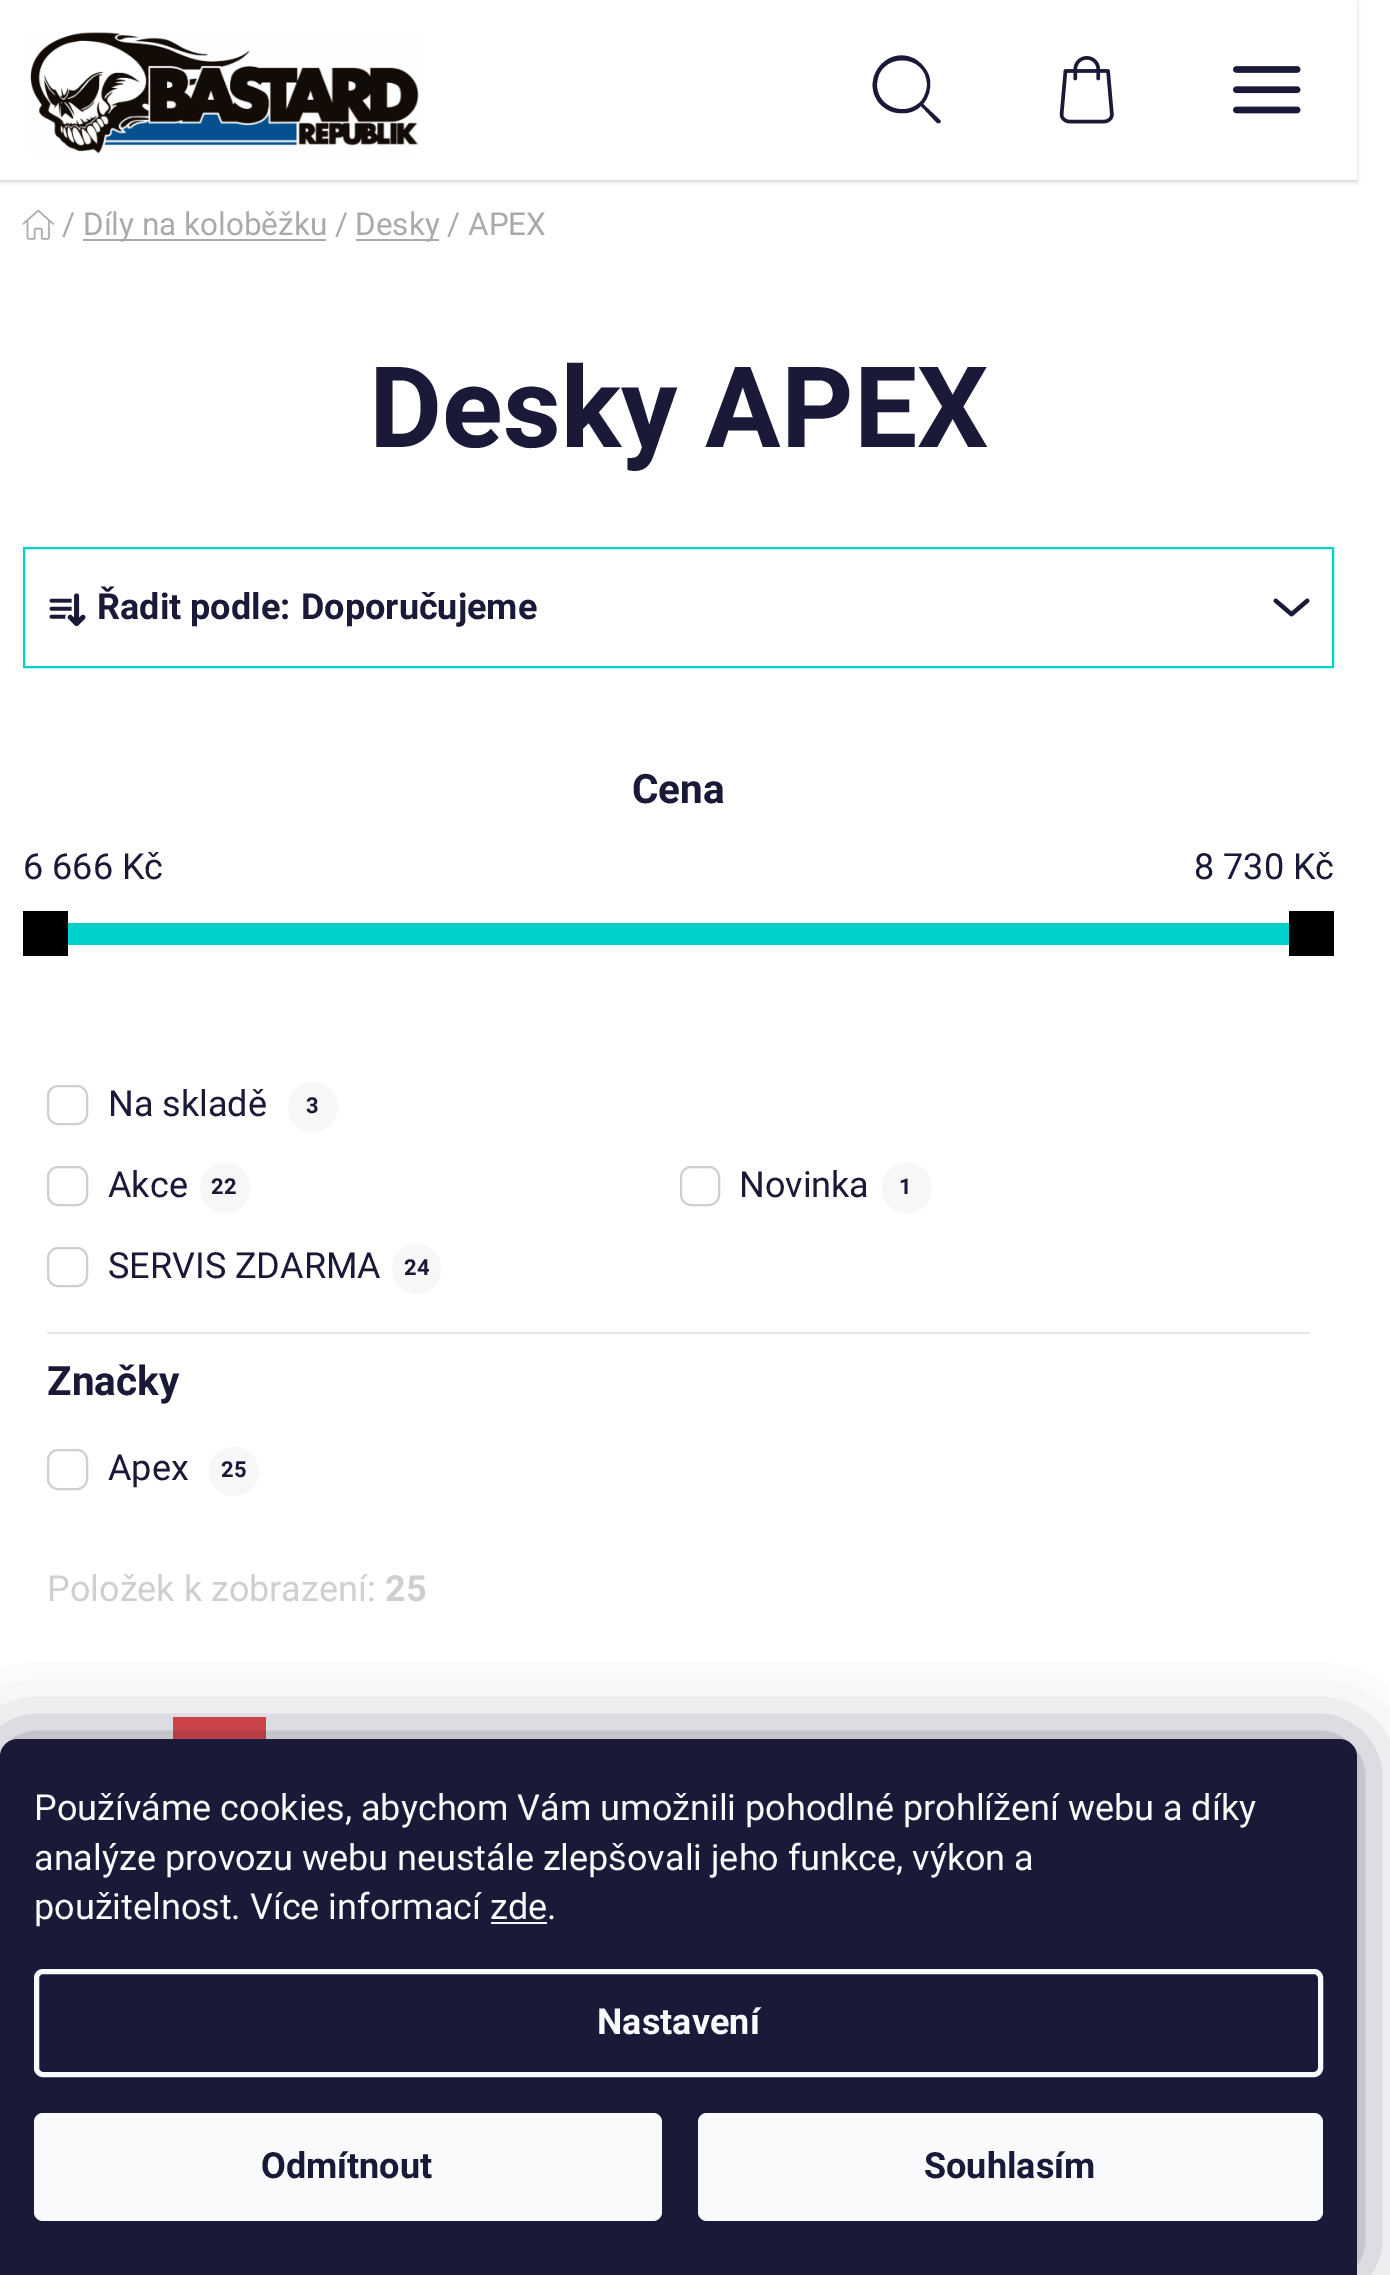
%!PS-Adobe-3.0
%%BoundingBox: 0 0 1390 2275
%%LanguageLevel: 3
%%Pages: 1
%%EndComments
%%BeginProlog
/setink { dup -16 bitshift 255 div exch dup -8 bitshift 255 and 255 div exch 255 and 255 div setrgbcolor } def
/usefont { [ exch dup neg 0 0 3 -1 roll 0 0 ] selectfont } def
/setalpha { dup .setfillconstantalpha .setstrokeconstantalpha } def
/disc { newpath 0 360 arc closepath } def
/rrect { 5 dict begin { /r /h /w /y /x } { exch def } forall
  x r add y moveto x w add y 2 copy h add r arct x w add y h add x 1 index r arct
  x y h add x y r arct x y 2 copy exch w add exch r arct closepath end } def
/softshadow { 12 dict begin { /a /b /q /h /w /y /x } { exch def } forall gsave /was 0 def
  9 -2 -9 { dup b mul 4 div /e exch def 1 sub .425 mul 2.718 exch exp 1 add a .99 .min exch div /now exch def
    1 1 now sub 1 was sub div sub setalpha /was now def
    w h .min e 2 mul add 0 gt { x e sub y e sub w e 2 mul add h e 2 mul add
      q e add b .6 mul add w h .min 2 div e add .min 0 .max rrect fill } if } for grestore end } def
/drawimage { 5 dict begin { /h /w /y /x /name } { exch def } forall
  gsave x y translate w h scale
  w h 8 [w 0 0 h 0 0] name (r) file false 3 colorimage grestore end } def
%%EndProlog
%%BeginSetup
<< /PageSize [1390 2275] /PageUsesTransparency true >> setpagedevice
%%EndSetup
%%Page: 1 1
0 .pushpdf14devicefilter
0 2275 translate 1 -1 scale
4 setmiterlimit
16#FFFFFF setink
0 0 1390 2275 rectfill
16#000000 setink
0 2 1357 180 0 2 0.16 softshadow
16#FFFFFF setink
0 0 1357 180 rectfill
(img1.raw) 30 32 389 122 drawimage
16#1A1937 setink
940 120 moveto 923 104 lineto 929 97 931 89 930 80 curveto 929 72 923 64 915 59 curveto 887 44 859 80 880 104 curveto 885 109 892 113 899 113 curveto 907 114 915 112 921 106 curveto 937 123 lineto 939 124 942 122 940 120 curveto closepath 877 85 moveto 877 52 927 52 927 85 curveto 927 90 925 95 922 100 curveto 907 118 877 108 877 85 curveto closepath fill
(img2.raw) 1059 56 55 68 drawimage
(img3.raw) 1233 66 68 48 drawimage
(img4.raw) 22 209 32 31 drawimage
/Roboto-Regular 31.5 usefont
16#AAAAAA setink
62 235 moveto (/) show
83 239 243 2 rectfill
83 235 moveto (Díly na koloběžku /) show
356 239 83 2 rectfill
355 235 moveto (Desky / APEX) show
/Roboto-Bold 112.5 usefont
16#1A1937 setink
369 447 moveto (Desky APEX) show
16#00D2CB setink
2 setlinewidth
24 548 1309 119 rectstroke
(img5.raw) 49 593 37 34 drawimage
/Roboto-Bold 36 usefont
16#1A1937 setink
97 619 moveto (Řadit podle:) show
301 619 moveto (Doporučujeme) show
(img6.raw) 1273 598 37 19 drawimage
/Roboto-Bold 40.5 usefont
632 803 moveto (Cena) show
/Roboto-Regular 36 usefont
23 879 moveto (6 666 Kč) show
1194 879 moveto (8 730 Kč) show
[
    [23 911 45 45 16#000000]
    [68 923 1221 22 16#00D2CB]
    [1289 911 45 45 16#000000]
] { aload pop setink rectfill } forall
16#CFCFCF setink
48 1086 39 38 10 rrect stroke
16#1A1937 setink
108 1116 moveto (Na skladě) show
16#F7F7F7 setink
313 1107 25 disc fill
/Roboto-Bold 22 usefont
16#1A1937 setink
306 1113 moveto (3) show
16#CFCFCF setink
48 1167 39 38 10 rrect stroke
/Roboto-Regular 36 usefont
16#1A1937 setink
108 1197 moveto (Akce) show
16#F7F7F7 setink
225 1188 25 disc fill
/Roboto-Bold 22 usefont
16#1A1937 setink
211 1194 moveto (22) show
16#CFCFCF setink
681 1167 38 38 10 rrect stroke
/Roboto-Regular 36 usefont
16#1A1937 setink
739 1197 moveto (Novinka) show
16#F7F7F7 setink
907 1188 25 disc fill
/Roboto-Bold 22 usefont
16#1A1937 setink
899 1194 moveto (1) show
16#CFCFCF setink
48 1248 39 38 10 rrect stroke
/Roboto-Regular 36 usefont
16#1A1937 setink
108 1278 moveto (SERVIS ZDARMA) show
16#F7F7F7 setink
392 1244 49 50 24.5 rrect fill
/Roboto-Bold 22 usefont
16#1A1937 setink
404 1275 moveto (24) show
16#E6E6E6 setink
47 1332 1263 2 rectfill
/Roboto-Bold 40.5 usefont
16#1A1937 setink
47 1395 moveto (Značky) show
16#CFCFCF setink
48 1450 39 39 10 rrect stroke
/Roboto-Regular 36 usefont
16#1A1937 setink
108 1480 moveto (Apex) show
16#F7F7F7 setink
209 1447 50 49 24.5 rrect fill
/Roboto-Bold 22 usefont
16#1A1937 setink
221 1477 moveto (25) show
/Roboto-Regular 36 usefont
16#CFCFCF setink
47 1601 moveto (Položek k zobrazení:) show
/Roboto-Bold 36 usefont
385 1601 moveto (25) show
16#E94B4B setink
173 1717 93 22 rectfill
16#1B1939 setink
0 1739 1357 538 18 34 0.5 softshadow
16#1A1937 setink
18 1739 moveto 1339 1739 lineto 1349 1739 1357 1747 1357 1757 curveto 1357 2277 lineto 0 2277 lineto 0 1757 lineto 0 1747 8 1739 18 1739 curveto closepath fill
/Roboto-Regular 36 usefont
16#F8FAFB setink
[
    [(Používáme cookies, abychom Vám umožnili pohodlné prohlížení webu a díky) 34 1820]
    [(analýze provozu webu neustále zlepšovali jeho funkce, výkon a) 34 1870]
    [(použitelnost. Více informací zde.) 34 1919]
] { aload pop moveto show } forall
491 1922 56 2 rectfill
5 setlinewidth
36.5 1971.5 1284 103 6.5 rrect stroke
/Roboto-Bold 36 usefont
597 2034 moveto (Nastavení) show
34 2113 628 108 9 rrect fill
16#1A1937 setink
261 2178 moveto (Odmítnout) show
16#F8FAFB setink
698 2113 625 108 9 rrect fill
16#1A1937 setink
924 2178 moveto (Souhlasím) show
.poppdf14devicefilter showpage
%%EOF
